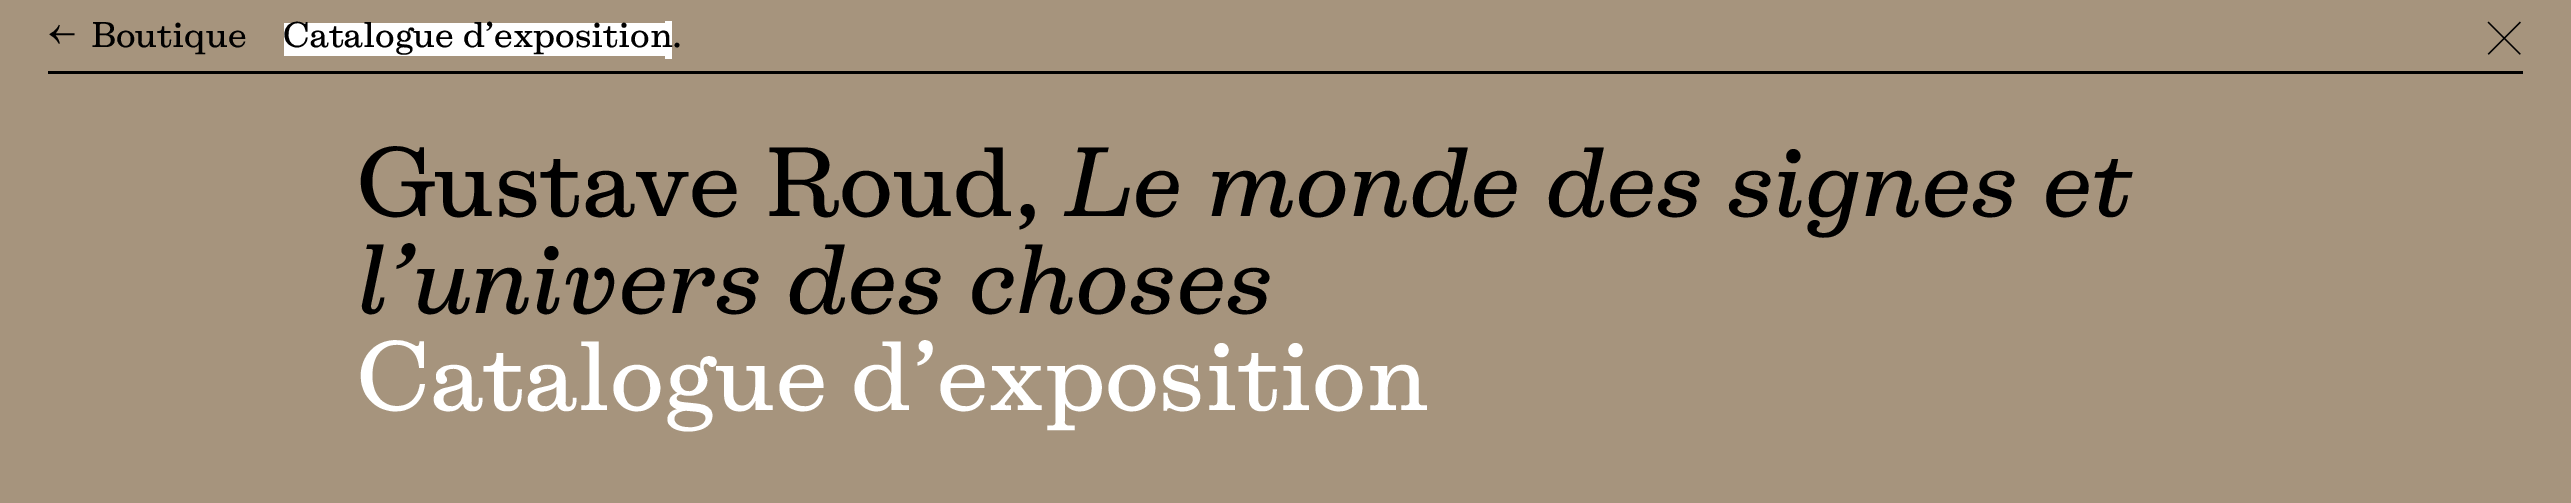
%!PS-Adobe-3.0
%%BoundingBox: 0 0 2571 503
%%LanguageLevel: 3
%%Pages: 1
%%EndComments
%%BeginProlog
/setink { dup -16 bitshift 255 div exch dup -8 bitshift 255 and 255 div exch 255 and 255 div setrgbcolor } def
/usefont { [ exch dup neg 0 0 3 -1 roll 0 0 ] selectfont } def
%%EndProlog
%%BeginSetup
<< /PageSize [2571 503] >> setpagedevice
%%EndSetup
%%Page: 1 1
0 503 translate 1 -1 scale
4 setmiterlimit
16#A6947D setink
0 0 2571 503 rectfill
16#000000 setink
48 71 2475 3 rectfill
/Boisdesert-Regular 32 usefont
48 47 moveto (←) show
91 47 moveto (Boutique) show
16#FFFFFF setink
284 23 381 33 rectfill
665 21 7 38 rectfill
16#000000 setink
283 47 moveto (Catalogue d’exposition.) show
2486 47 moveto (╳) show
/Boisdesert-Regular 88 usefont
357 216 moveto (Gustave Roud,) show
/Boisdesert-Italic 88 usefont
1064 216 moveto (Le monde des signes et) show
357 313 moveto (l’univers des choses) show
/Boisdesert-Regular 88 usefont
16#FFFFFF setink
357 410 moveto (Catalogue d’exposition) show
showpage
%%EOF
